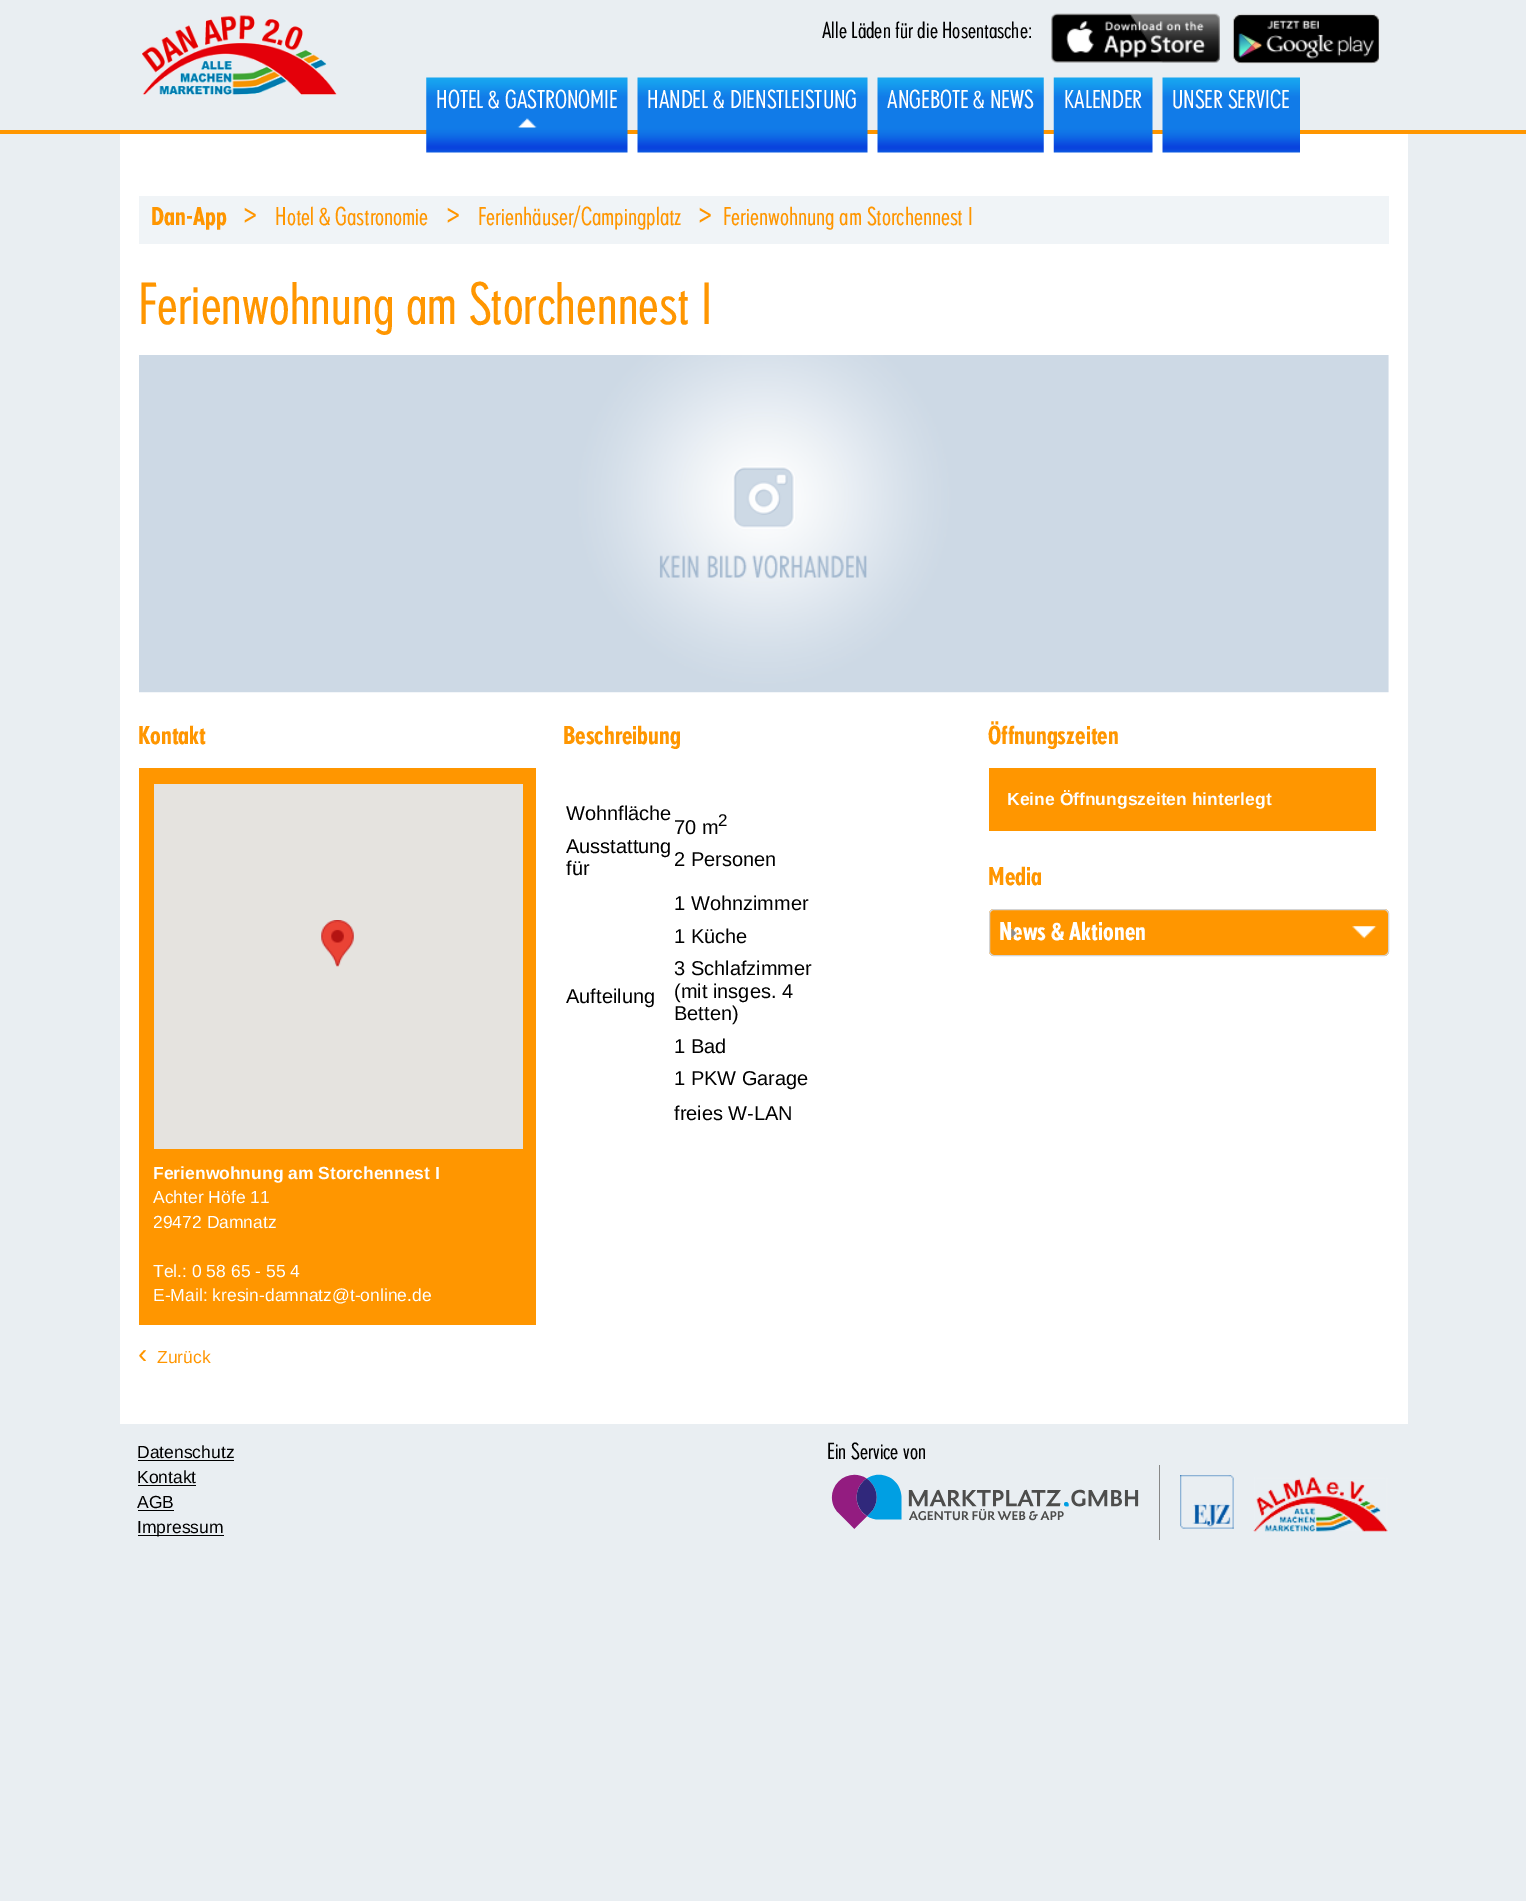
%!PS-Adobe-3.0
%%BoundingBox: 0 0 1526 1901
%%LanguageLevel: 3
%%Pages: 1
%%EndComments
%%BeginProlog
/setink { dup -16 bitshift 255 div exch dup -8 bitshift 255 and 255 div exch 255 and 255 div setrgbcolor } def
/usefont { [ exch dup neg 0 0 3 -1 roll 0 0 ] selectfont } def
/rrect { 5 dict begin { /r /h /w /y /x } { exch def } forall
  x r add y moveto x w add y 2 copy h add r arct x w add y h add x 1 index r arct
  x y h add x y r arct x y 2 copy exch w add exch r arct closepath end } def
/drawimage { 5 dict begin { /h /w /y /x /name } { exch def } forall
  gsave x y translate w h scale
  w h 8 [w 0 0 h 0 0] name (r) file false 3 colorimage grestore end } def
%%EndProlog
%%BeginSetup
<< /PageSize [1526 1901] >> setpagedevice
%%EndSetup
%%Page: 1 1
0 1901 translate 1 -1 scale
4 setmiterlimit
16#E9EEF2 setink
0 0 1526 1901 rectfill
16#FF9600 setink
0 130 1526 4 rectfill
(img1.raw) 141 15 196 80 drawimage
/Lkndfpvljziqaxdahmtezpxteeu-Regular 22.5 usefont
16#000000 setink
822 38 moveto (Alle Läden für die Hosentasche:) show
(img2.raw) 1051 13 169 50 drawimage
(img3.raw) 1232 13 148 51 drawimage
16#FFFFFF setink
120 134 1288 1290 rectfill
(img4.raw) 426 77 202 76 drawimage
/Lkndfpvljziqaxdahmtezpxteeu-Regular 25 usefont
436 108 moveto (HOTEL & GASTRONOMIE) show
(img5.raw) 517 118 20 10 drawimage
(img6.raw) 637 77 231 76 drawimage
647 108 moveto (HANDEL & DIENSTLEISTUNG) show
(img7.raw) 877 77 167 76 drawimage
887 108 moveto (ANGEBOTE & NEWS) show
(img8.raw) 1053 77 100 76 drawimage
1064 108 moveto (KALENDER) show
(img9.raw) 1162 77 138 76 drawimage
1172 108 moveto (UNSER SERVICE) show
16#F0F4F7 setink
139 196 1250 48 rectfill
/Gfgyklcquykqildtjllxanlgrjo-Medium 25 usefont
16#FF9600 setink
151 225 moveto (Dan-App) show
/Lkndfpvljziqaxdahmtezpxteeu-Regular 32 usefont
242 225 moveto (>) show
/Lkndfpvljziqaxdahmtezpxteeu-Regular 25 usefont
275 225 moveto (Hotel & Gastronomie) show
/Lkndfpvljziqaxdahmtezpxteeu-Regular 32 usefont
445 225 moveto (>) show
/Lkndfpvljziqaxdahmtezpxteeu-Regular 25 usefont
478 225 moveto (Ferienhäuser/Campingplatz) show
/Lkndfpvljziqaxdahmtezpxteeu-Regular 32 usefont
697 225 moveto (>) show
/Lkndfpvljziqaxdahmtezpxteeu-Regular 25 usefont
723 225 moveto (Ferienwohnung am Storchennest I) show
/Lkndfpvljziqaxdahmtezpxteeu-Regular 57.5 usefont
138 324 moveto (Ferienwohnung am Storchennest I) show
(img10.raw) 139 355 1250 338 drawimage
/Gfgyklcquykqildtjllxanlgrjo-Medium 25 usefont
138 744 moveto (Kontakt) show
139 768 397 557 rectfill
16#E5E3DF setink
154 784 369 365 rectfill
(img11.raw) 321 920 33 47 drawimage
/LiberationSans-Bold 17.5 usefont
16#FFFFFF setink
153 1179 moveto (Ferienwohnung am Storchennest I) show
/LiberationSans-Regular 17.5 usefont
[
    [(Achter Höfe 11) 153 1203]
    [(29472 Damnatz) 153 1228]
    [(Tel.: 0 58 65 - 55 4) 153 1277]
    [(E-Mail: kresin-damnatz@t-online.de) 153 1301]
] { aload pop moveto show } forall
/Gfgyklcquykqildtjllxanlgrjo-Medium 25 usefont
16#FF9600 setink
563 744 moveto (Beschreibung) show
/LiberationSans-Regular 20 usefont
16#000000 setink
[
    [(Wohnfläche) 566 820]
    [(Ausstattung) 566 853]
    [(für) 566 875]
    [(70 m) 674 834]
] { aload pop moveto show } forall
/LiberationSans-Regular 17 usefont
718 826 moveto (2) show
/LiberationSans-Regular 20 usefont
[
    [(2 Personen) 674 866]
    [(Aufteilung) 566 1003]
    [(1 Wohnzimmer) 674 910]
    [(1 Küche) 674 943]
    [(3 Schlafzimmer) 674 975]
    [(\(mit insges. 4) 674 998]
    [(Betten\)) 674 1020]
    [(1 Bad) 674 1053]
    [(1 PKW Garage) 674 1085]
    [(freies W-LAN) 674 1120]
] { aload pop moveto show } forall
/Gfgyklcquykqildtjllxanlgrjo-Medium 25 usefont
16#FF9600 setink
988 744 moveto (Öffnungszeiten) show
989 768 387 63 rectfill
/LiberationSans-Bold 17.5 usefont
16#FFFFFF setink
1007 805 moveto (Keine Öffnungszeiten hinterlegt) show
/Gfgyklcquykqildtjllxanlgrjo-Medium 25 usefont
16#FF9600 setink
988 885 moveto (Media) show
989 909 400 47 5 rrect fill
(img12.raw) 1352 926 25 13 drawimage
16#D3D3D3 setink
989.5 909.5 399 46 4.5 rrect stroke
16#FFFFFF setink
999 940 moveto (News & Aktionen) show
(img13.raw) 1011 928 6 10 drawimage
/LiberationSans-Regular 28 usefont
16#FF9600 setink
138 1363 moveto (‹) show
/LiberationSans-Regular 17.5 usefont
157 1363 moveto (Zurück) show
16#000000 setink
137 1458 moveto (Datenschutz) show
138 1460 96 1 rectfill
137 1483 moveto (Kontakt) show
138 1485 58 1 rectfill
137 1508 moveto (AGB) show
138 1510 36 1 rectfill
138 1535 86 1 rectfill
137 1533 moveto (Impressum) show
/Lkndfpvljziqaxdahmtezpxteeu-Regular 22.5 usefont
827 1459 moveto (Ein Service von) show
(img14.raw) 831 1474 308 55 drawimage
16#888888 setink
1159 1465 1 75 rectfill
(img15.raw) 1180 1475 54 54 drawimage
(img16.raw) 1253 1477 135 55 drawimage
showpage
%%EOF
